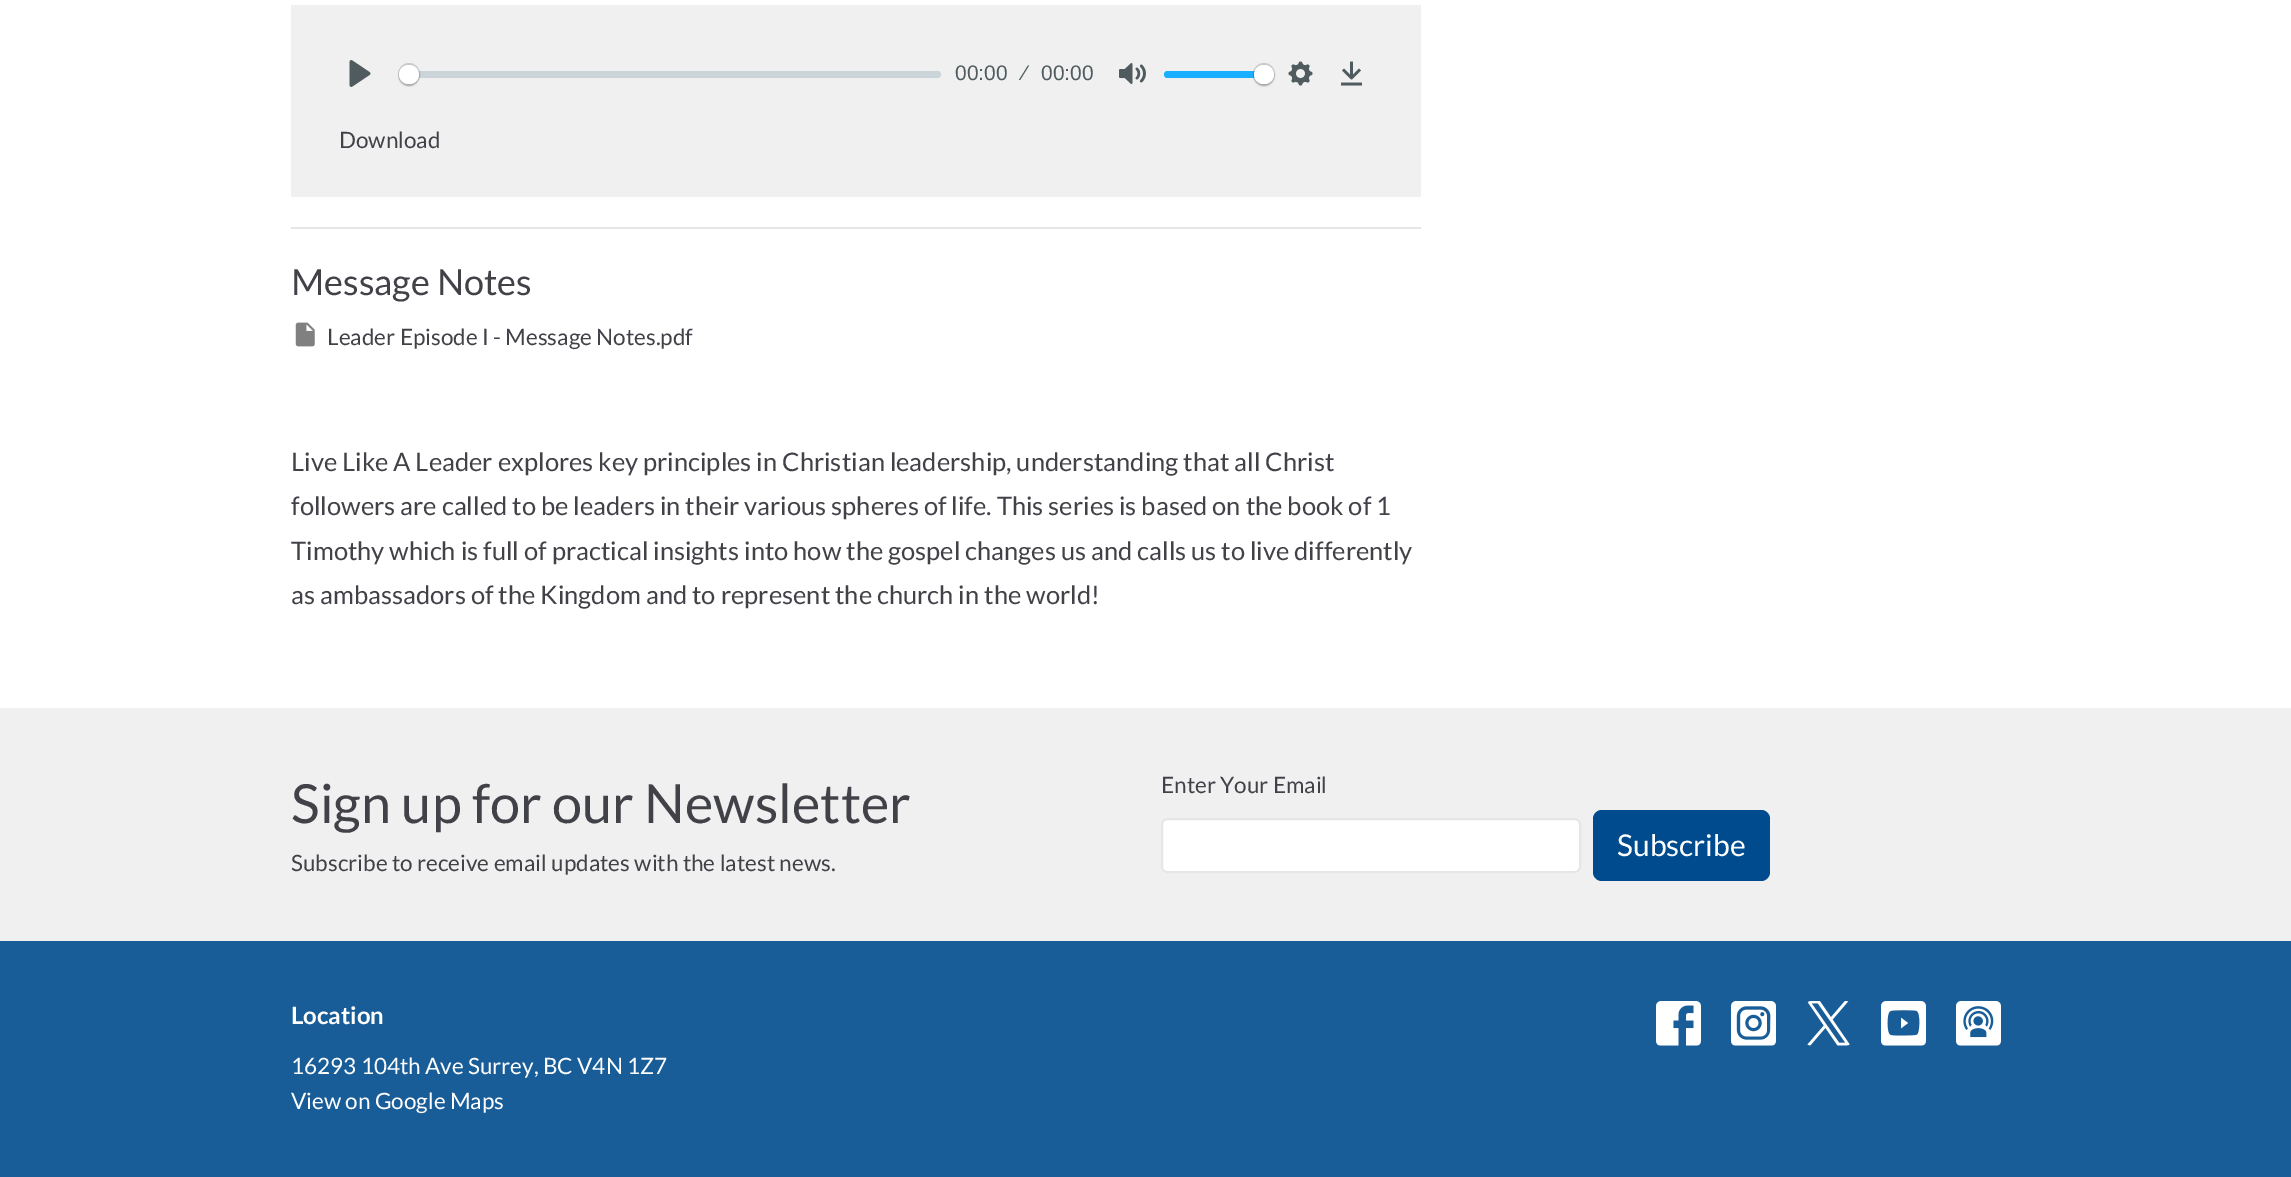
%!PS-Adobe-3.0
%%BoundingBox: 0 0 2291 1177
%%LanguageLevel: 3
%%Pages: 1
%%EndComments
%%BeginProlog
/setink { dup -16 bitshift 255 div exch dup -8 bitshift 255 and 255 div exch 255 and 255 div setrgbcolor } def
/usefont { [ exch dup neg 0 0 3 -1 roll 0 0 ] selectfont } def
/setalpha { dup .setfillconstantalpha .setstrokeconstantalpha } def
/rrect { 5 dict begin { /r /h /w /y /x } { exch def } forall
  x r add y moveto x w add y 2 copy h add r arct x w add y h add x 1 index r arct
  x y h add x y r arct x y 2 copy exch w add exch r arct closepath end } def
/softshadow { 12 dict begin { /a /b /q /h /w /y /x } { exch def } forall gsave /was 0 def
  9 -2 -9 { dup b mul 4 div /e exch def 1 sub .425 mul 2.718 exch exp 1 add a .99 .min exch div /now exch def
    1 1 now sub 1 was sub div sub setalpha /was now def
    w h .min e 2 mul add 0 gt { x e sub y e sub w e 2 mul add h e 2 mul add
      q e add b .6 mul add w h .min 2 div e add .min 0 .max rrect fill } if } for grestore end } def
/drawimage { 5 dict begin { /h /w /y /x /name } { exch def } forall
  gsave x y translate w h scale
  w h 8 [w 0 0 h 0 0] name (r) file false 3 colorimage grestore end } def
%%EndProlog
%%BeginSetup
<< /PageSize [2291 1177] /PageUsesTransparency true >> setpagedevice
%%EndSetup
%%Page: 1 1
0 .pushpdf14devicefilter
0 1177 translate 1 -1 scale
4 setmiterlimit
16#FFFFFF setink
0 0 2291 1177 rectfill
16#F0F0F0 setink
291 5 1130 192 rectfill
(img1.raw) 349 60 22 27 drawimage
0.66 setalpha
16#B7C5CD setink
399 71 542 7 3.5 rrect fill
0.2 setalpha
16#2F343D setink
2 setlinewidth
399 64 20 21 10 rrect stroke
1 setalpha
16#000000 setink
399 66 20 20 10 1 0.15 softshadow
16#FFFFFF setink
399 65 20 19 9.5 rrect fill
/LiberationSans-Regular 21 usefont
16#4F5B5F setink
[
    [(00:00) 955 80]
    [(⁄) 1023 80]
    [(00:00) 1041 80]
] { aload pop moveto show } forall
(img2.raw) 1119 63 27 21 drawimage
16#1AAFFF setink
1164 71 110 7 3.5 rrect fill
0.2 setalpha
16#2F343D setink
1254 64 20 21 10 rrect stroke
1 setalpha
16#000000 setink
1254 66 20 20 10 1 0.15 softshadow
16#FFFFFF setink
1254 65 20 19 9.5 rrect fill
(img3.raw) 1288 61 25 25 drawimage
(img4.raw) 1341 61 21 25 drawimage
/Lato-Regular 22.5 usefont
16#414148 setink
339 148 moveto (Download) show
16#E6E6E6 setink
291 227 1130 2 rectfill
/Lato-Regular 36 usefont
16#414148 setink
291 295 moveto (Message Notes) show
(img5.raw) 295 322 20 25 drawimage
/Lato-Regular 22.5 usefont
327 345 moveto (Leader Episode I - Message Notes.pdf) show
/Lato-Regular 25.5 usefont
[
    [(Live Like A Leader explores key principles in Christian leadership, understanding that all Christ) 291 471]
    [(followers are called to be leaders in their various spheres of life. This series is based on the book of 1) 291 515]
    [(Timothy which is full of practical insights into how the gospel changes us and calls us to live differently) 291 560]
    [(as ambassadors of the Kingdom and to represent the church in the world!) 291 604]
] { aload pop moveto show } forall
16#F0F0F0 setink
0 708 2291 233 rectfill
/Lato-Regular 54 usefont
16#414148 setink
291 823 moveto (Sign up for our Newsletter) show
/Lato-Regular 22.5 usefont
291 871 moveto (Subscribe to receive email updates with the latest news.) show
1161 793 moveto (Enter Your Email) show
16#FFFFFF setink
1161 818 420 55 6 rrect fill
16#ECECEC setink
1167 820 moveto 1575 820 lineto 1577 820 1580 823 1580 825 curveto 1580 824 lineto 1580 821 1578 819 1575 819 curveto 1168 819 lineto 1166 819 1164 820 1163 822 curveto 1164 821 1166 820 1167 820 curveto closepath fill
16#E6E6E6 setink
1162 819 418 53 5 rrect stroke
16#004B8D setink
1593 810 177 71 9 rrect fill
/Lato-Regular 30 usefont
16#FFFFFF setink
1617 856 moveto (Subscribe) show
16#195D98 setink
0 941 2291 236 rectfill
/Lato-Bold 24 usefont
16#FFFFFF setink
291 1024 moveto (Location) show
/Lato-Regular 22.5 usefont
291 1074 moveto (16293 104th Ave Surrey, BC V4N 1Z7) show
291 1109 moveto (View on Google Maps) show
(img6.raw) 1656 1001 45 45 drawimage
(img7.raw) 1731 1001 45 45 drawimage
(img8.raw) 1807 1001 43 45 drawimage
(img9.raw) 1881 1001 45 45 drawimage
(img10.raw) 1956 1001 45 45 drawimage
.poppdf14devicefilter showpage
%%EOF
